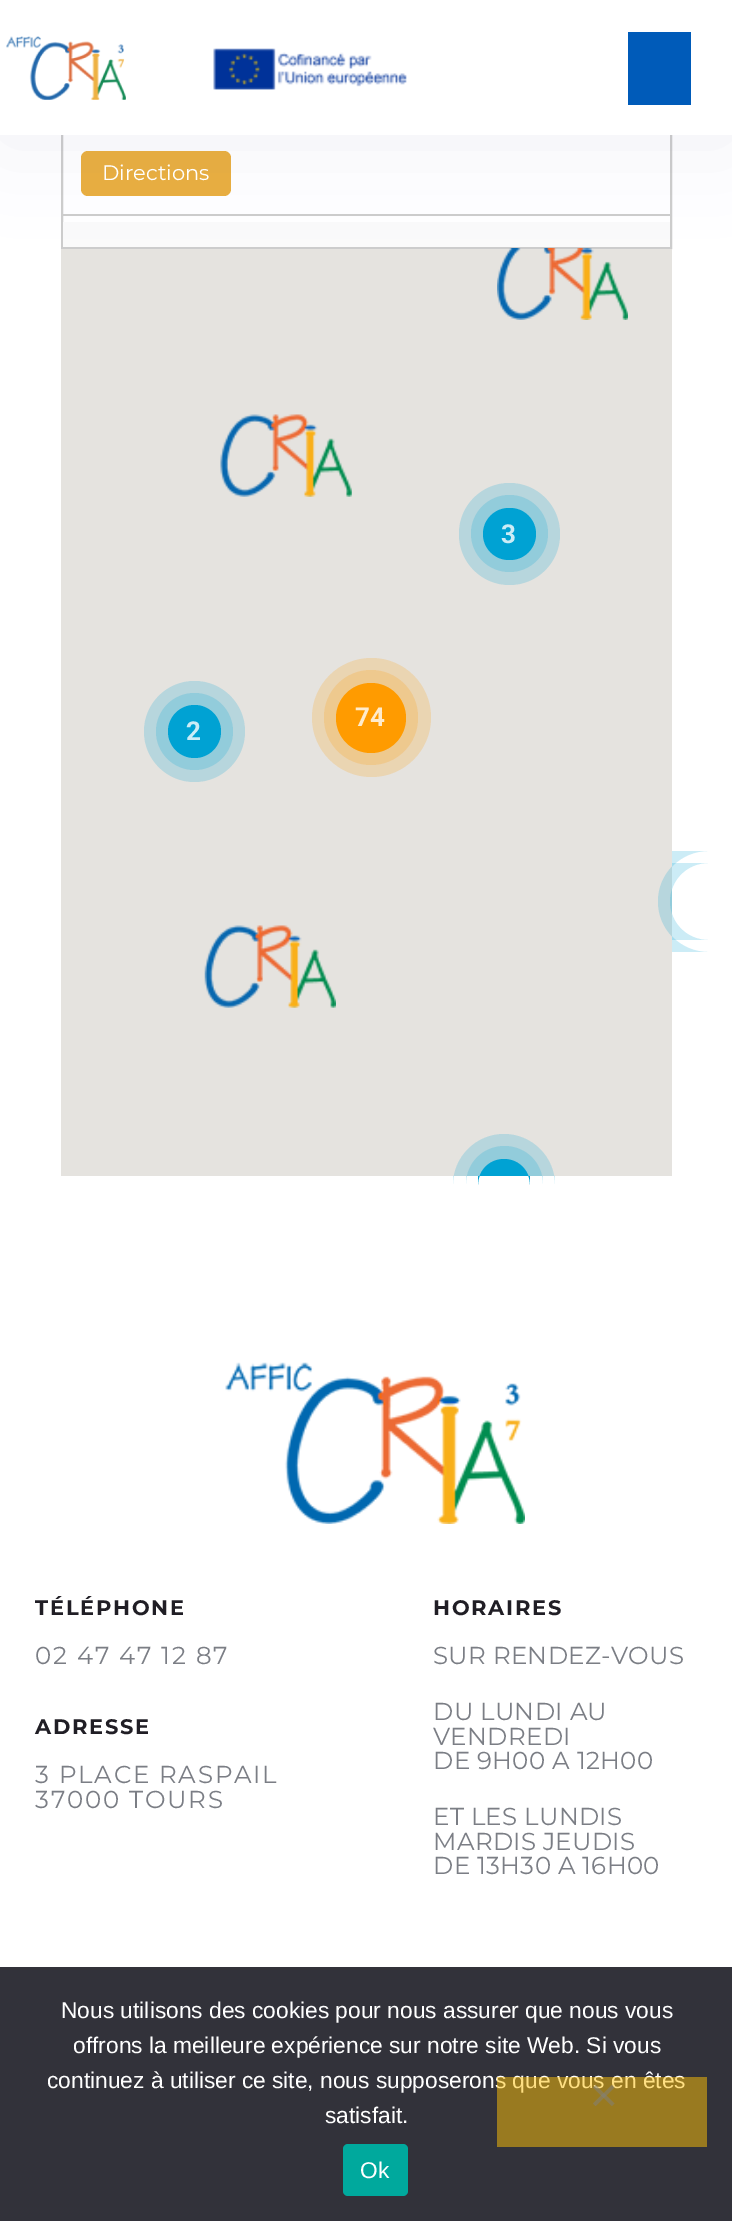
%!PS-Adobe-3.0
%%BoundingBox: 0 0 732 2221
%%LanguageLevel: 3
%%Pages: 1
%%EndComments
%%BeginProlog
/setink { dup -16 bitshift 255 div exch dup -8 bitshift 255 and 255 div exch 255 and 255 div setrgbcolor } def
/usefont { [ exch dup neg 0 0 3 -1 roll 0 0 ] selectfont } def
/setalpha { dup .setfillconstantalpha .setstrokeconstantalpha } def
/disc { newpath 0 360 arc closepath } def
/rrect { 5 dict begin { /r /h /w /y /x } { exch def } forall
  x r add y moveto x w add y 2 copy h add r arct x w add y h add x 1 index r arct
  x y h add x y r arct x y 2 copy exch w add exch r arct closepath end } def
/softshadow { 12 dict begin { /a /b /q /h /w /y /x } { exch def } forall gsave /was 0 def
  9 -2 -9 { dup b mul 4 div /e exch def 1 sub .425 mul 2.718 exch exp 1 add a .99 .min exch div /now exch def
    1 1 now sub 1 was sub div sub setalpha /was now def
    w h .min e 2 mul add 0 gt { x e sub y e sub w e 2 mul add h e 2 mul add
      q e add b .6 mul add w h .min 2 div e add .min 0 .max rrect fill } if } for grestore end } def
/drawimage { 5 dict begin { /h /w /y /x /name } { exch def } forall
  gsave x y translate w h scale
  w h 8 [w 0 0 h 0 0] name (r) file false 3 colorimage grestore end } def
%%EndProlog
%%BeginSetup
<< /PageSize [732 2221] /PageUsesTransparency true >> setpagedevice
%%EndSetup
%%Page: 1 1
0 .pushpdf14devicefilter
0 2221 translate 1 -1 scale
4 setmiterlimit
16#FFFFFF setink
0 0 732 2221 rectfill
16#CCCCCC setink
2 setlinewidth
62 -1 609 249 rectstroke
63 214 607 2 rectfill
16#EAAE40 setink
81 151 150 45 7 rrect fill
16#FAFAFA setink
63 222 607 25 rectfill
16#E5E3DF setink
61 249 611 927 rectfill
(img3.raw) 497 248 131 72 drawimage
16#696682 setink
0 5 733 135 0 44 0.1 softshadow
16#FFFFFF setink
0 0 732 135 rectfill
(img1.raw) 6 36 120 64 drawimage
(img2.raw) 213 48 194 42 drawimage
16#005BB9 setink
628 32 63 73 rectfill
/Montserrat-Regular 21 usefont
16#FFFFFF setink
102 180 moveto (Directions) show
(img4.raw) 220 414 132 83 drawimage
(img5.raw) 204 925 132 83 drawimage
16#00A2D3 setink
483 508 53 52 26 rrect fill
0.2 setalpha
509.5 533.5 38.5 disc fill
/Roboto-Bold 26 usefont
1 setalpha
16#FFFFFF setink
501 543 moveto (3) show
0.2 setalpha
16#00A2D3 setink
459 483 101 102 50.5 rrect fill
1 setalpha
16#FF9B00 setink
371 718 35 disc fill
0.2 setalpha
324 670 94 95 47 rrect fill
1 setalpha
16#FFFFFF setink
355 726 moveto (74) show
0.2 setalpha
16#FF9B00 setink
371.5 717.5 59.5 disc fill
1 setalpha
16#00A2D3 setink
194.5 731.5 26.5 disc fill
0.2 setalpha
194.5 731.5 38.5 disc fill
1 setalpha
16#FFFFFF setink
186 740 moveto (2) show
0.2 setalpha
16#00A2D3 setink
194.5 731.5 50.5 disc fill
708.5 863 moveto 672 863 lineto 672 940 lineto 708.5 940 lineto 687 940 670 923 670 901.5 curveto 670 880 687 863 708.5 863 curveto closepath fill
708.5 851 moveto 672 851 lineto 672 952 lineto 708.5 952 lineto 680.5 952 658 929.5 658 901.5 curveto 658 873.5 680.5 851 708.5 851 curveto closepath fill
1 setalpha
504 1159 moveto 518.5 1159 530 1170.5 530 1185 curveto 530 1176 lineto 478 1176 lineto 478 1185 lineto 478 1170.5 489.5 1159 504 1159 curveto closepath fill
0.2 setalpha
504.5 1146 moveto 526 1146 543 1163 543 1184.5 curveto 543 1176 lineto 466 1176 lineto 466 1184.5 lineto 466 1163 483 1146 504.5 1146 curveto closepath fill
504 1134 moveto 532 1134 555 1157 555 1185 curveto 555 1176 lineto 453 1176 lineto 453 1185 lineto 453 1157 476 1134 504 1134 curveto closepath fill
1 setalpha
(img6.raw) 225 1362 300 162 drawimage
/Montserrat-Bold 21 usefont
16#201E25 setink
35 1615 moveto 1.75 0 (TÉLÉPHONE) ashow
/Montserrat-Regular 24.5 usefont
16#7B7E85 setink
35 1664 moveto 1.75 0 (02 47 47 12 87) ashow
/Montserrat-Bold 21 usefont
16#201E25 setink
35 1734 moveto 1.75 0 (ADRESSE) ashow
/Montserrat-Regular 24.5 usefont
16#7B7E85 setink
35 1783 moveto 1.75 0 (3 PLACE RASPAIL) ashow
35 1808 moveto 1.75 0 (37000 TOURS) ashow
/Montserrat-Bold 21 usefont
16#201E25 setink
433 1615 moveto 1.75 0 (HORAIRES) ashow
/Montserrat-Regular 24.5 usefont
16#7B7E85 setink
433 1664 moveto 0.3 0 (SUR RENDEZ-VOUS) ashow
433 1720 moveto 0.3 0 (DU LUNDI AU) ashow
433 1745 moveto 0.3 0 (VENDREDI) ashow
433 1769 moveto 0.3 0 (DE 9H00 A 12H00) ashow
433 1825 moveto 0.3 0 (ET LES LUNDIS) ashow
433 1850 moveto 0.3 0 (MARDIS JEUDIS) ashow
433 1874 moveto 0.3 0 (DE 13H30 A 16H00) ashow
16#32323A setink
0 1967 732 254 rectfill
/LiberationSans-Regular 22.75 usefont
16#FFFFFF setink
[
    [(Nous utilisons des cookies pour nous assurer que nous vous) 61 2018]
    [(offrons la meilleure expérience sur notre site Web. Si vous) 73 2053]
    [(continuez à utiliser ce site, nous supposerons que vous en êtes) 47 2088]
    [(satisfait.) 325 2123]
] { aload pop moveto show } forall
0.5 setalpha
16#FFC107 setink
497 2077 210 70 rectfill
16#808080 setink
612 2085 moveto 614.5 2087.5 lineto 595.5 2106 lineto 593 2103.5 lineto closepath fill
593 2087.5 moveto 595.5 2085 lineto 614.5 2103.5 lineto 612 2106 lineto closepath fill
1 setalpha
16#00A99D setink
343 2144 65 52 5 rrect fill
16#FFFFFF setink
360 2178 moveto (Ok) show
.poppdf14devicefilter showpage
%%EOF
